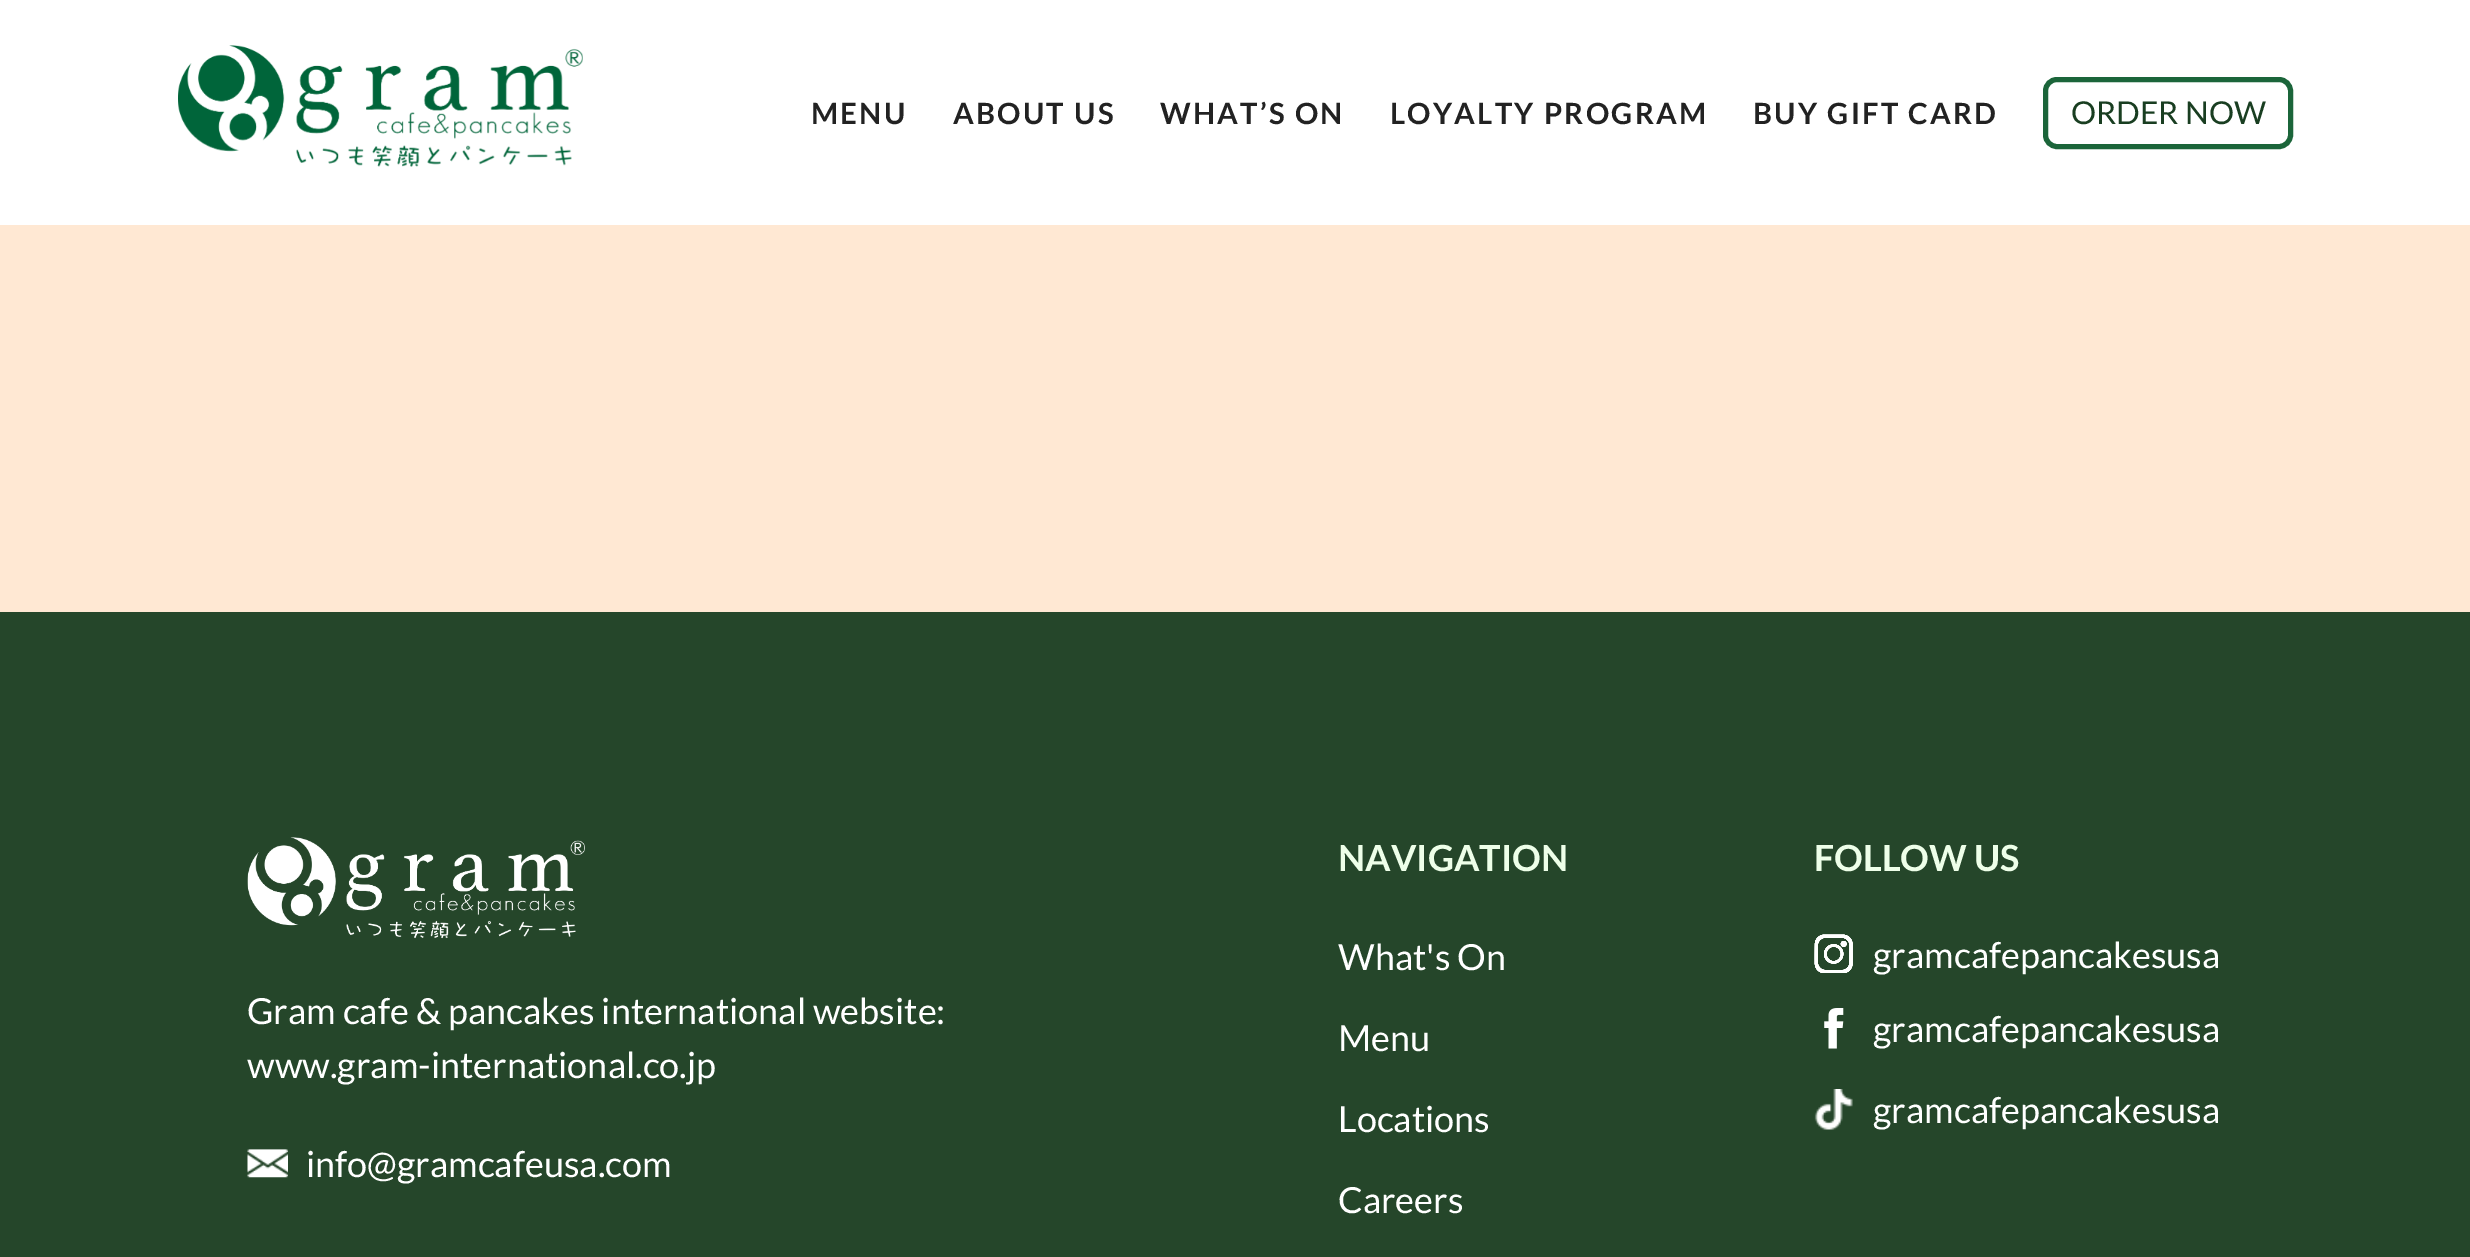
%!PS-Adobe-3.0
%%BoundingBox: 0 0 2470 1257
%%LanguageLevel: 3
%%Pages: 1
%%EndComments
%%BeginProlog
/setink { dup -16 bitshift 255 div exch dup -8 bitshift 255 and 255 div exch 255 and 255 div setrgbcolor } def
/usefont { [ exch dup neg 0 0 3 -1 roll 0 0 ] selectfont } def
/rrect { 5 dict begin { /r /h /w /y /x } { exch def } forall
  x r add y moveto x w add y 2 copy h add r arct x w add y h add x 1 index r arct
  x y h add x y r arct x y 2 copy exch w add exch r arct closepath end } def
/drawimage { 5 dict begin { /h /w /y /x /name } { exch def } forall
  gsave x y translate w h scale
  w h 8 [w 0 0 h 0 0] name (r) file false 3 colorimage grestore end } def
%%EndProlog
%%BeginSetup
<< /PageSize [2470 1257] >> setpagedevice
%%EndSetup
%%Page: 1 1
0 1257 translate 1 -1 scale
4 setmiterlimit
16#FFE8D3 setink
0 0 2470 1257 rectfill
16#FFFFFF setink
0 0 2470 225 rectfill
(img1.raw) 178 45 405 122 drawimage
/Lato-Bold 29.25 usefont
16#222222 setink
811 124 moveto 2.25 0 (MENU) ashow
953 124 moveto 2.25 0 (ABOUT US) ashow
1160 124 moveto 2.25 0 (WHAT’S ON) ashow
1390 124 moveto 2.25 0 (LOYALTY PROGRAM) ashow
1753 124 moveto 2.25 0 (BUY GIFT CARD) ashow
16#1B653A setink
5 setlinewidth
2045.5 79.5 245 67 11.5 rrect stroke
/Lato-Regular 31.5 usefont
16#193E21 setink
2071 124 moveto (ORDER NOW) show
16#25462A setink
0 612 2470 645 rectfill
(img2.raw) 247 837 338 102 drawimage
/Lato-Regular 36 usefont
16#FFFFFF setink
247 1024 moveto (Gram cafe & pancakes international website:) show
247 1078 moveto (www.gram-international.co.jp) show
(img3.raw) 247 1149 41 29 drawimage
306 1177 moveto (info@gramcafeusa.com) show
/Lato-Bold 36 usefont
16#EEFFE9 setink
1338 871 moveto (NAVIGATION) show
/Lato-Regular 36 usefont
16#FFFFFF setink
[
    [(What's On) 1338 970]
    [(Menu) 1338 1051]
    [(Locations) 1338 1132]
    [(Careers) 1338 1213]
] { aload pop moveto show } forall
/Lato-Bold 36 usefont
16#EEFFE9 setink
1814 871 moveto (FOLLOW US) show
(img4.raw) 1814 934 39 39 drawimage
/Lato-Regular 36 usefont
16#FFFFFF setink
1873 968 moveto (gramcafepancakesusa) show
(img5.raw) 1824 1008 20 41 drawimage
1873 1042 moveto (gramcafepancakesusa) show
(img6.raw) 1814 1089 39 41 drawimage
1873 1123 moveto (gramcafepancakesusa) show
showpage
%%EOF
